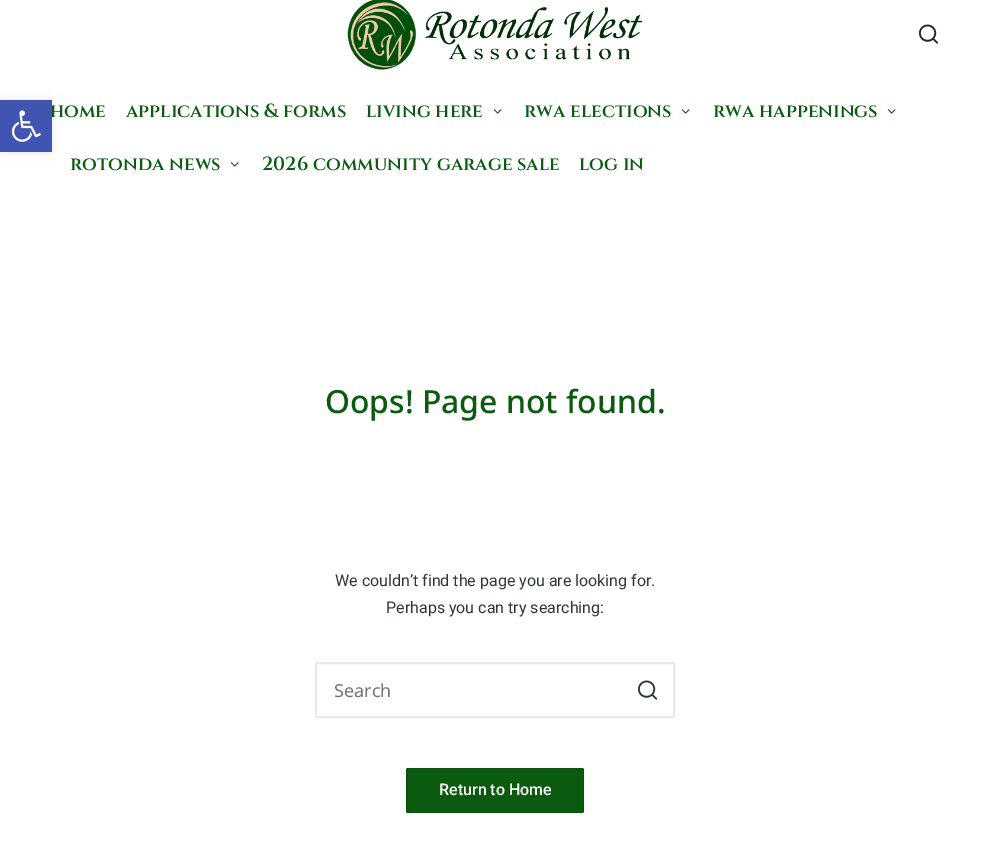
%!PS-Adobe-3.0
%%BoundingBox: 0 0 990 853
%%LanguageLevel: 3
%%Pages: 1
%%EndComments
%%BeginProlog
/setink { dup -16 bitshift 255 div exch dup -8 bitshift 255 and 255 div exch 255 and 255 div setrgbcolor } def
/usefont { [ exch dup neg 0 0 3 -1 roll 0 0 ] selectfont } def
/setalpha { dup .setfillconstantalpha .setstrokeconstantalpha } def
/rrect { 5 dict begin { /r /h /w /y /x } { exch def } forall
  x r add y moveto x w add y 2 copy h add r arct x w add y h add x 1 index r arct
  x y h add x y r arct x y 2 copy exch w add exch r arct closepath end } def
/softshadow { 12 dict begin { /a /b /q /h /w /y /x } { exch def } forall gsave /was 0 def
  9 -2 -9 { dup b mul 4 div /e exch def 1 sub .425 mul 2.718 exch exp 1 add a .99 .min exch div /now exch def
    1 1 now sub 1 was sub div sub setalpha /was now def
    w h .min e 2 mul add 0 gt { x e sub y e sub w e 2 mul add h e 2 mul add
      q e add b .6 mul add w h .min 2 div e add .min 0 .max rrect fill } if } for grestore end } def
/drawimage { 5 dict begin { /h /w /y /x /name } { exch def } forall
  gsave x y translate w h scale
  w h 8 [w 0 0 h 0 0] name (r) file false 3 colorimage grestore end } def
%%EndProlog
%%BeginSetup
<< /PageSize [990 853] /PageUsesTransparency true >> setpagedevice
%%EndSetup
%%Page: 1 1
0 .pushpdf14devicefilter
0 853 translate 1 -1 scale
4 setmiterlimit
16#FFFFFF setink
0 0 990 853 rectfill
16#000000 setink
0 100 52 52 0 5 0.1 softshadow
/Cinzel-SemiBold 19 usefont
16#0A5A10 setink
50 117 moveto (home) show
16#4054B2 setink
0 100 52 52 rectfill
(img1.raw) 11 110 30 32 drawimage
(img2.raw) 347 0 296 70 drawimage
(img3.raw) 918 24 21 20 drawimage
16#0A5A10 setink
126 117 moveto (applications & forms) show
366 117 moveto (living here) show
(img4.raw) 493 109 9 5 drawimage
524 117 moveto (rwa elections) show
(img4.raw) 681 109 9 5 drawimage
713 117 moveto (rwa happenings) show
(img4.raw) 887 109 9 5 drawimage
70 170 moveto (rotonda news) show
(img4.raw) 230 162 9 5 drawimage
262 170 moveto (2026 community garage sale) show
579 170 moveto (log in) show
/NotoSans-Medium 31.9 usefont
325 413 moveto (Oops! Page not found.) show
/Roboto-Regular 16 usefont
16#30373E setink
335 586 moveto (We couldn’t find the page you are looking for.) show
386 613 moveto (Perhaps you can try searching:) show
16#E9E9E9 setink
2 setlinewidth
316 663 358 54 1 rrect stroke
/NotoSans-Regular 18 usefont
16#757575 setink
334 697 moveto (Search) show
(img5.raw) 637 680 21 20 drawimage
16#0A5A10 setink
406 768 178 45 2 rrect fill
0.12 setalpha
16#000000 setink
1 setlinewidth
406.5 768.5 177 44 1.5 rrect stroke
/Roboto-Medium 16 usefont
1 setalpha
16#FFFFFF setink
439 795 moveto (Return to Home) show
.poppdf14devicefilter showpage
%%EOF
